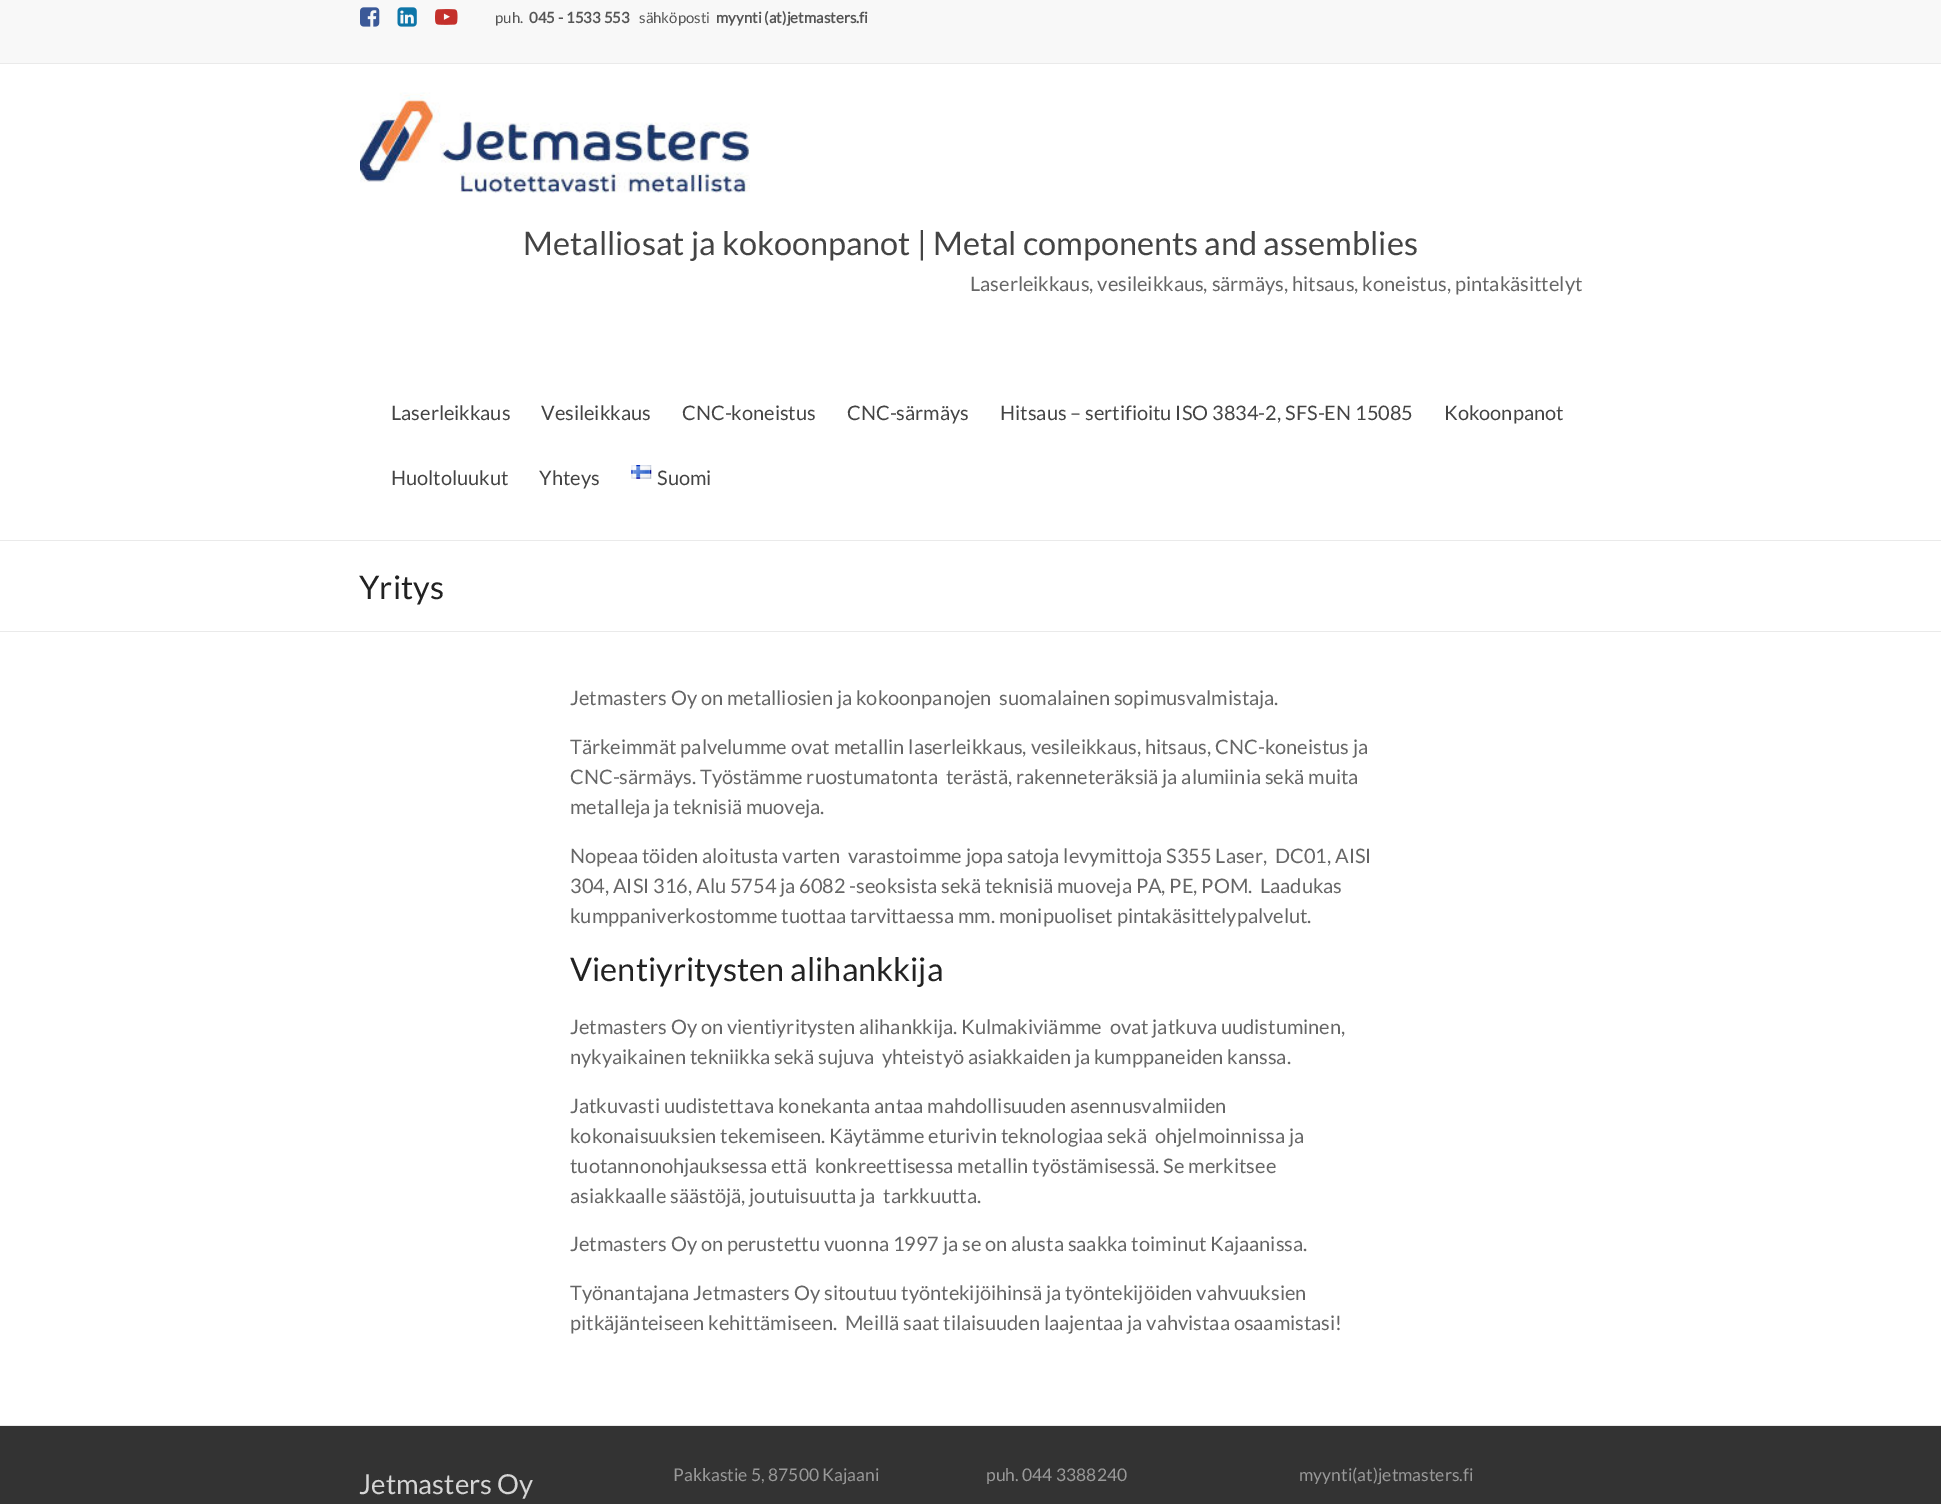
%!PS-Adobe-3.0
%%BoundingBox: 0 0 1941 1504
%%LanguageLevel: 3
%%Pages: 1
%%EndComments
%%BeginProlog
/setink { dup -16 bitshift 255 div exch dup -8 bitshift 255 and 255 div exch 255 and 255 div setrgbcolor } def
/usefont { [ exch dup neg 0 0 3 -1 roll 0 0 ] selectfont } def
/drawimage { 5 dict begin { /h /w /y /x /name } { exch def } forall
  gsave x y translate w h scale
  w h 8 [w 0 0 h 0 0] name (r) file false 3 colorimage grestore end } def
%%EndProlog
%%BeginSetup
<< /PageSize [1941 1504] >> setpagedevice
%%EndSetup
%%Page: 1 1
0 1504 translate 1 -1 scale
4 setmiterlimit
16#FFFFFF setink
0 0 1941 1504 rectfill
16#F8F8F8 setink
0 0 1941 63 rectfill
16#EAEAEA setink
0 63 1941 1 rectfill
(img1.raw) 360 7 20 20 drawimage
(img2.raw) 397 7 20 20 drawimage
(img3.raw) 435 9 23 16 drawimage
/Lato-Regular 15 usefont
16#555555 setink
495 23 moveto (puh.) show
/Lato-Bold 15 usefont
529 23 moveto (045 - 1533 553) show
/Lato-Regular 15 usefont
639 23 moveto (sähköposti) show
/Lato-Bold 15 usefont
716 23 moveto (myynti \(at\)jetmasters.fi) show
16#EAEAEA setink
0 540 1941 1 rectfill
(img4.raw) 360 92 390 101 drawimage
/Lato-Regular 32.5 usefont
16#444444 setink
523 255 moveto (Metalliosat ja kokoonpanot | Metal components and assemblies) show
/Lato-Regular 20 usefont
16#666666 setink
970 291 moveto (Laserleikkaus, vesileikkaus, särmäys, hitsaus, koneistus, pintakäsittelyt) show
16#444444 setink
[
    [(Laserleikkaus) 391 420]
    [(Vesileikkaus) 541 420]
    [(CNC-koneistus) 682 420]
    [(CNC-särmäys) 847 420]
    [(Hitsaus – sertifioitu ISO 3834-2, SFS-EN 15085) 1000 420]
    [(Kokoonpanot) 1444 420]
    [(Huoltoluukut) 391 485]
    [(Yhteys) 539 485]
] { aload pop moveto show } forall
(img5.raw) 631 465 21 14 drawimage
657 485 moveto (Suomi) show
16#EAEAEA setink
0 631 1941 1 rectfill
/Lato-Regular 32.5 usefont
16#222222 setink
359 599 moveto (Yritys) show
/Lato-Regular 20 usefont
16#666666 setink
[
    [(Jetmasters Oy on metalliosien ja kokoonpanojen  suomalainen sopimusvalmistaja.) 570 705]
    [(Tärkeimmät palvelumme ovat metallin laserleikkaus, vesileikkaus, hitsaus, CNC-koneistus ja) 570 754]
    [(CNC-särmäys. Työstämme ruostumatonta  terästä, rakenneteräksiä ja alumiinia sekä muita) 570 784]
    [(metalleja ja teknisiä muoveja.) 570 814]
    [(Nopeaa töiden aloitusta varten  varastoimme jopa satoja levymittoja S355 Laser,  DC01, AISI) 570 863]
    [(304, AISI 316, Alu 5754 ja 6082 -seoksista sekä teknisiä muoveja PA, PE, POM.  Laadukas) 570 893]
    [(kumppaniverkostomme tuottaa tarvittaessa mm. monipuoliset pintakäsittelypalvelut.) 570 923]
] { aload pop moveto show } forall
/Lato-Regular 32.5 usefont
16#222222 setink
570 981 moveto (Vientiyritysten alihankkija) show
/Lato-Regular 20 usefont
16#666666 setink
[
    [(Jetmasters Oy on vientiyritysten alihankkija. Kulmakiviämme  ovat jatkuva uudistuminen,) 570 1034]
    [(nykyaikainen tekniikka sekä sujuva  yhteistyö asiakkaiden ja kumppaneiden kanssa.) 570 1064]
    [(Jatkuvasti uudistettava konekanta antaa mahdollisuuden asennusvalmiiden) 570 1113]
    [(kokonaisuuksien tekemiseen. Käytämme eturivin teknologiaa sekä  ohjelmoinnissa ja) 570 1143]
    [(tuotannonohjauksessa että  konkreettisessa metallin työstämisessä. Se merkitsee) 570 1173]
    [(asiakkaalle säästöjä, joutuisuutta ja  tarkkuutta.) 570 1203]
    [(Jetmasters Oy on perustettu vuonna 1997 ja se on alusta saakka toiminut Kajaanissa.) 570 1251]
    [(Työnantajana Jetmasters Oy sitoutuu työntekijöihinsä ja työntekijöiden vahvuuksien) 570 1300]
    [(pitkäjänteiseen kehittämiseen.  Meillä saat tilaisuuden laajentaa ja vahvistaa osaamistasi!) 570 1330]
] { aload pop moveto show } forall
16#333333 setink
0 1426 1941 78 rectfill
16#EAEAEA setink
0 1425 1941 1 rectfill
/Lato-Regular 27.5 usefont
16#D5D5D5 setink
359 1494 moveto (Jetmasters Oy) show
/Lato-Regular 17.5 usefont
16#999999 setink
[
    [(Pakkastie 5, 87500 Kajaani) 673 1481]
    [(puh. 044 3388240) 986 1481]
    [(myynti\(at\)jetmasters.fi) 1299 1481]
] { aload pop moveto show } forall
showpage
%%EOF
